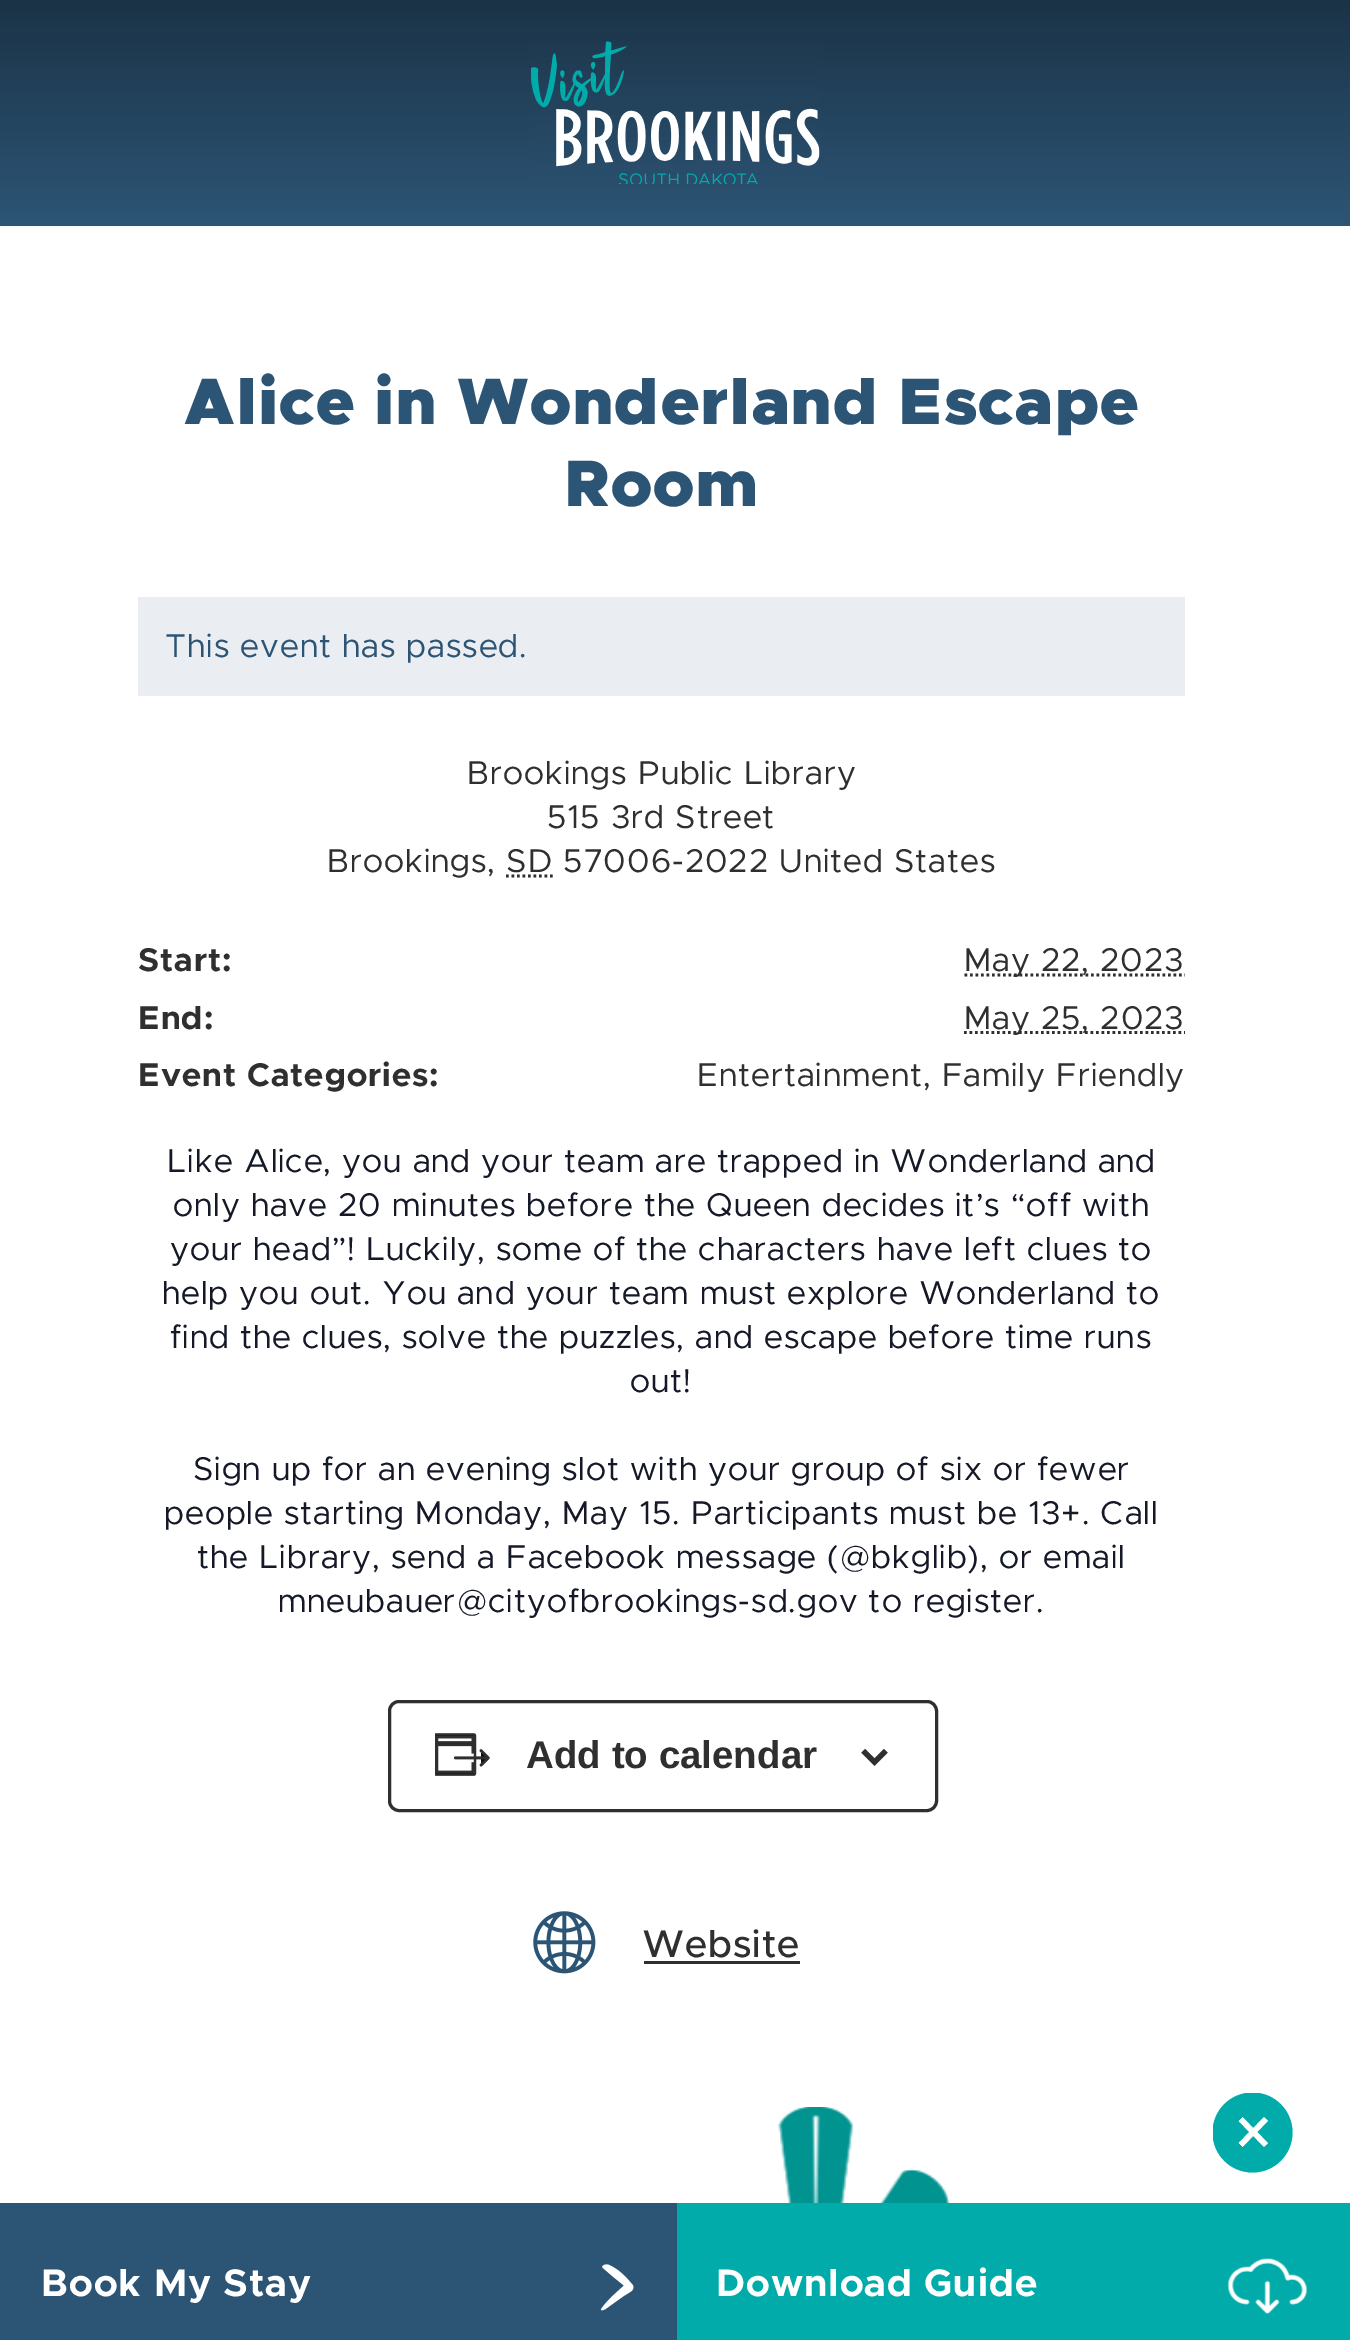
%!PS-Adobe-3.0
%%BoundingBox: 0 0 1350 2340
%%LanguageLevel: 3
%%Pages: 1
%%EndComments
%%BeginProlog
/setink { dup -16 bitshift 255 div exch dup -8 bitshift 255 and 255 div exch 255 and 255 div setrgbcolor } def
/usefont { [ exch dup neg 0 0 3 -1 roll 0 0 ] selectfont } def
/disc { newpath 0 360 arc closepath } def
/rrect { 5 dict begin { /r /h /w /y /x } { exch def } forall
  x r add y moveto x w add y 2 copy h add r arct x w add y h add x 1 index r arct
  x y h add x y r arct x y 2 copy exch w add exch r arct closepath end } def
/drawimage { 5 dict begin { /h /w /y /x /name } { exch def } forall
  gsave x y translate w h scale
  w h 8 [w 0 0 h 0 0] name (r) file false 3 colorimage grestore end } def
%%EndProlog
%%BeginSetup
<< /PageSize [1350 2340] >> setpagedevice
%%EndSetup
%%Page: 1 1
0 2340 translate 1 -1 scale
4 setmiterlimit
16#FFFFFF setink
0 0 1350 2340 rectfill
16#2C5475 setink
0 220 1350 6 rectfill
gsave 0 0 moveto 1350 0 lineto 1350 220 lineto 0 220 lineto closepath clip newpath
<< /ShadingType 2 /ColorSpace /DeviceRGB /Coords [675 0 675 220] /Extend [true true] /Function << /FunctionType 2 /Domain [0 1] /C0 [0.106 0.2 0.278] /C1 [0.173 0.329 0.455] /N 1 >> >> shfill grestore
(img1.raw) 531 41 289 143 drawimage
/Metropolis-Black 66 usefont
184 424 moveto 1.1 0 (Alice in Wonderland Escape) ashow
564 506 moveto 1.1 0 (Room) ashow
16#EAEEF2 setink
138 597 1047 99 rectfill
/Metropolis-Regular 33 usefont
16#2C5475 setink
165 657 moveto 1.1 0 (This event has passed.) ashow
16#2F2F2F setink
467 784 moveto 1.1 0 (Brookings Public Library) ashow
547 828 moveto 1.1 0 (515 3rd Street) ashow
327 872 moveto 1.1 0 (Brookings, SD 57006-2022 United States) ashow
2.8 setlinewidth
[2.75 2.75] 0 setdash
506 876 moveto 553 876 lineto stroke
/Metropolis-Bold 33 usefont
138 971 moveto 1.1 0 (Start:) ashow
964.5 975 moveto 1185 975 lineto stroke
/Metropolis-Regular 33 usefont
964 971 moveto 1.1 0 (May 22, 2023) ashow
/Metropolis-Bold 33 usefont
138 1029 moveto 1.1 0 (End:) ashow
964 1032.5 moveto 1185 1032.5 lineto stroke
/Metropolis-Regular 33 usefont
964 1029 moveto 1.1 0 (May 25, 2023) ashow
/Metropolis-Bold 33 usefont
138 1086 moveto 1.1 0 (Event Categories:) ashow
/Metropolis-Regular 33 usefont
697 1086 moveto 1.1 0 (Entertainment, Family Friendly) ashow
16#141827 setink
167 1172 moveto 1.1 0 (Like Alice, you and your team are trapped in Wonderland and) ashow
173 1216 moveto 1.1 0 (only have 20 minutes before the Queen decides it’s “off with) ashow
170 1260 moveto 1.1 0 (your head”! Luckily, some of the characters have left clues to) ashow
162 1304 moveto 1.1 0 (help you out. You and your team must explore Wonderland to) ashow
170 1348 moveto 1.1 0 (find the clues, solve the puzzles, and escape before time runs) ashow
630 1392 moveto 1.1 0 (out!) ashow
193 1480 moveto 1.1 0 (Sign up for an evening slot with your group of six or fewer) ashow
164 1524 moveto 1.1 0 (people starting Monday, May 15. Participants must be 13+. Call) ashow
197 1568 moveto 1.1 0 (the Library, send a Facebook message \(@bkglib\), or email) ashow
278 1612 moveto 1.1 0 (mneubauer@cityofbrookings-sd.gov to register.) ashow
16#2F2F2F setink
3 setlinewidth
[] 0 setdash
389.5 1701.5 547 109 9.5 rrect stroke
(img2.raw) 435 1733 55 43 drawimage
/LiberationSans-Bold 38.5 usefont
526 1768 moveto (Add to calendar) show
(img3.raw) 861 1749 27 17 drawimage
(img4.raw) 533 1911 63 63 drawimage
/Metropolis-Medium 38.5 usefont
642 1957 moveto 1.1 0 (Website) ashow
644 1961 156 3 rectfill
(img5.raw) 778 2107 172 96 drawimage
gsave
1213 2093 80 80 rectclip
16#00ABA9 setink
1252.5 2132.5 40 disc fill
grestore
gsave
1253.5 2106.5 moveto 1279 2132 lineto 1253.5 2157.5 lineto 1228 2132 lineto closepath clip newpath
16#FFFFFF setink
5.5 setlinewidth
1240.5 2119 moveto 1266 2145 lineto 1266 2119 moveto 1240.5 2145 lineto stroke
grestore
16#2C5475 setink
0 2203 677 137 rectfill
/Metropolis-Bold 38.5 usefont
16#FFFFFF setink
41 2296 moveto 1.1 0 (Book My Stay) ashow
(img6.raw) 600 2264 34 47 drawimage
16#00ABA9 setink
677 2203 673 137 rectfill
16#FFFFFF setink
716 2296 moveto 1.1 0 (Download Guide) ashow
(img7.raw) 1227 2258 80 56 drawimage
showpage
%%EOF
